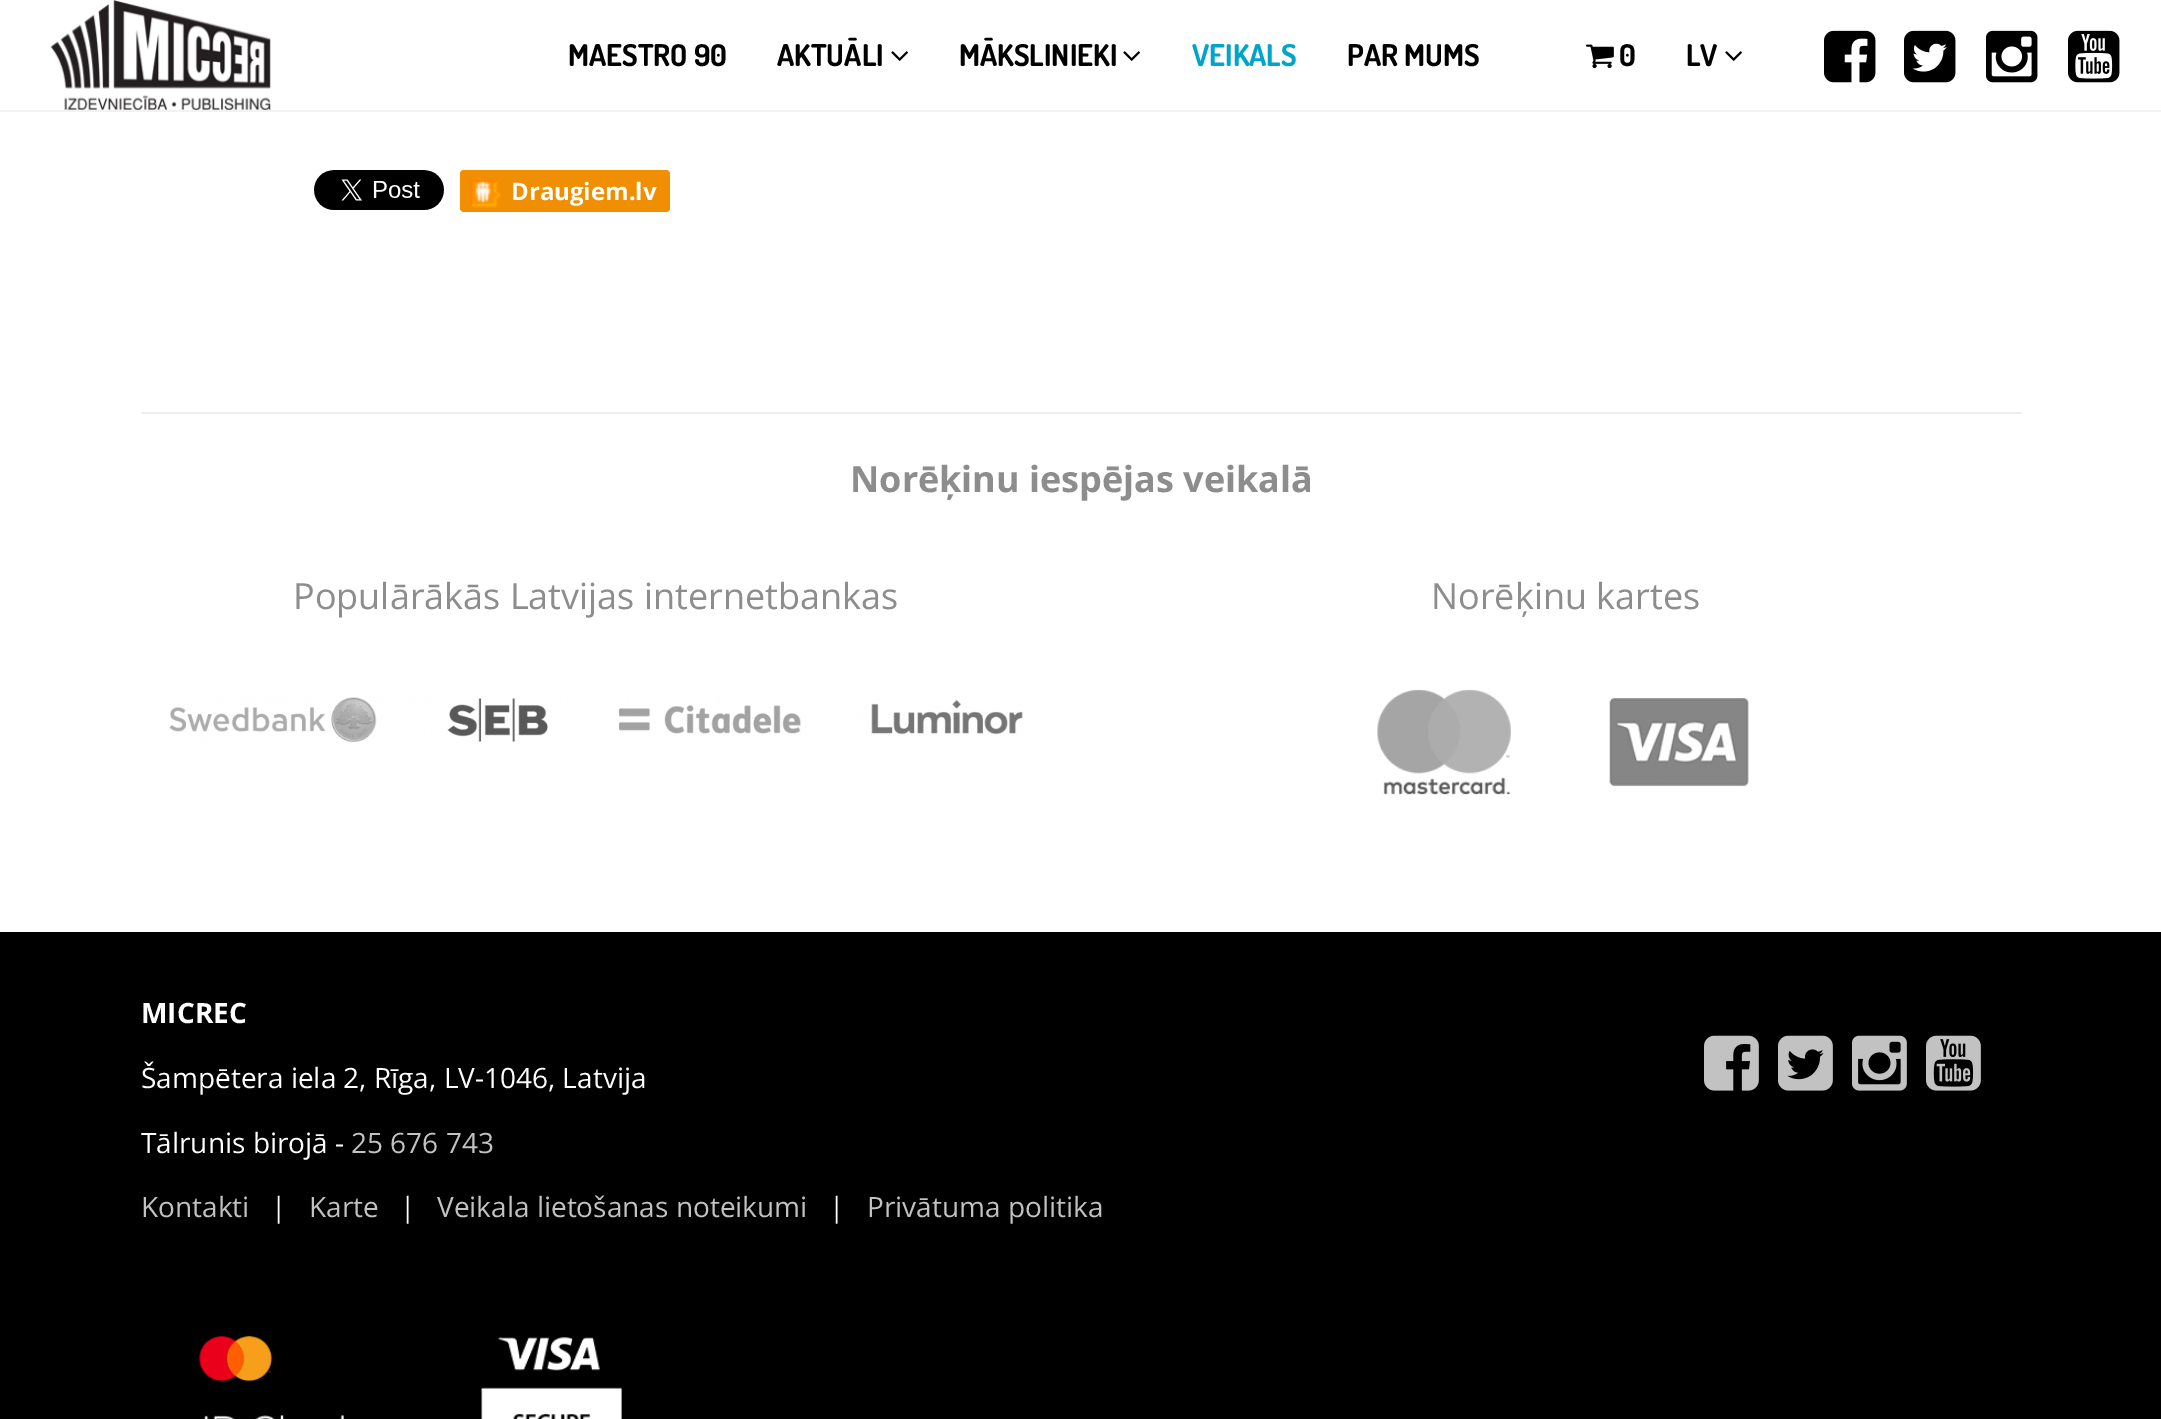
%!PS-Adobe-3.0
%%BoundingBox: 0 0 2161 1419
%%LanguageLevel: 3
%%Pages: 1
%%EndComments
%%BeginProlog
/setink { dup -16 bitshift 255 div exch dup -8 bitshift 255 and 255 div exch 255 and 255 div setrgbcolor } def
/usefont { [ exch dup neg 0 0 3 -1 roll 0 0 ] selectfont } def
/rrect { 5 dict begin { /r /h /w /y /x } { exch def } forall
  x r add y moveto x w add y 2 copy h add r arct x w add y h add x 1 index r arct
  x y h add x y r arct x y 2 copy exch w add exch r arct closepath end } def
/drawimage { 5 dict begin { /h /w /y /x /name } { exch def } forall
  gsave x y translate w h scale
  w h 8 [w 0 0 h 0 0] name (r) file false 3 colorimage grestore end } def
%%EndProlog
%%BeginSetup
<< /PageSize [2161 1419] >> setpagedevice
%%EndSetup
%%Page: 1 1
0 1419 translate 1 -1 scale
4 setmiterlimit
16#FFFFFF setink
0 0 2161 1419 rectfill
16#F2F2F2 setink
0 110 2161 2 rectfill
(img1.raw) 50 0 221 110 drawimage
/Dosis-Bold 30 usefont
16#000000 setink
568 66 moveto (MAESTRO 90) show
777 66 moveto (AKTUĀLI) show
(img2.raw) 891 51 17 10 drawimage
959 66 moveto (MĀKSLINIEKI) show
(img2.raw) 1123 51 17 10 drawimage
16#01A5C9 setink
1192 66 moveto (VEIKALS) show
16#000000 setink
1347 66 moveto (PAR MUMS) show
(img3.raw) 1586 44 28 25 drawimage
1619 66 moveto (0) show
1686 66 moveto (LV) show
(img2.raw) 1725 51 17 10 drawimage
(img4.raw) 1824 30 52 53 drawimage
(img5.raw) 1904 30 52 53 drawimage
(img6.raw) 1986 30 52 53 drawimage
(img7.raw) 2068 30 52 53 drawimage
(img8.raw) 314 170 130 40 drawimage
16#EF8F01 setink
460 170 210 42 4 rrect fill
(img9.raw) 470 180 32 28 drawimage
/OpenSans-Bold 24 usefont
16#FFFFFF setink
511 200 moveto (Draugiem.lv) show
16#EEEEEE setink
142 412 1880 2 rectfill
/OpenSans-Bold 36 usefont
16#8D8D8D setink
850 492 moveto (Norēķinu iespējas veikalā) show
/OpenSans-Regular 36 usefont
293 609 moveto (Populārākās Latvijas internetbankas) show
(img10.raw) 169 697 854 46 drawimage
1431 609 moveto (Norēķinu kartes) show
(img11.raw) 1377 689 372 106 drawimage
16#000000 setink
0 932 2161 487 rectfill
/OpenSans-Bold 28 usefont
16#FFFFFF setink
141 1023 moveto (MICREC) show
/OpenSans-Regular 28 usefont
141 1088 moveto (Šampētera iela 2, Rīga, LV-1046, Latvija) show
141 1153 moveto (Tālrunis birojā -) show
16#C2C2C2 setink
351 1153 moveto (25 676 743) show
141 1217 moveto (Kontakti) show
16#FFFFFF setink
271 1217 moveto (|) show
16#C2C2C2 setink
309 1217 moveto (Karte) show
16#FFFFFF setink
400 1217 moveto (|) show
16#C2C2C2 setink
437 1217 moveto (Veikala lietošanas noteikumi) show
16#FFFFFF setink
829 1217 moveto (|) show
16#C2C2C2 setink
867 1217 moveto (Privātuma politika) show
(img12.raw) 1704 1035 55 56 drawimage
(img13.raw) 1778 1035 55 56 drawimage
(img14.raw) 1852 1035 55 56 drawimage
(img15.raw) 1926 1035 55 56 drawimage
(img16.raw) 199 1336 423 83 drawimage
showpage
%%EOF
